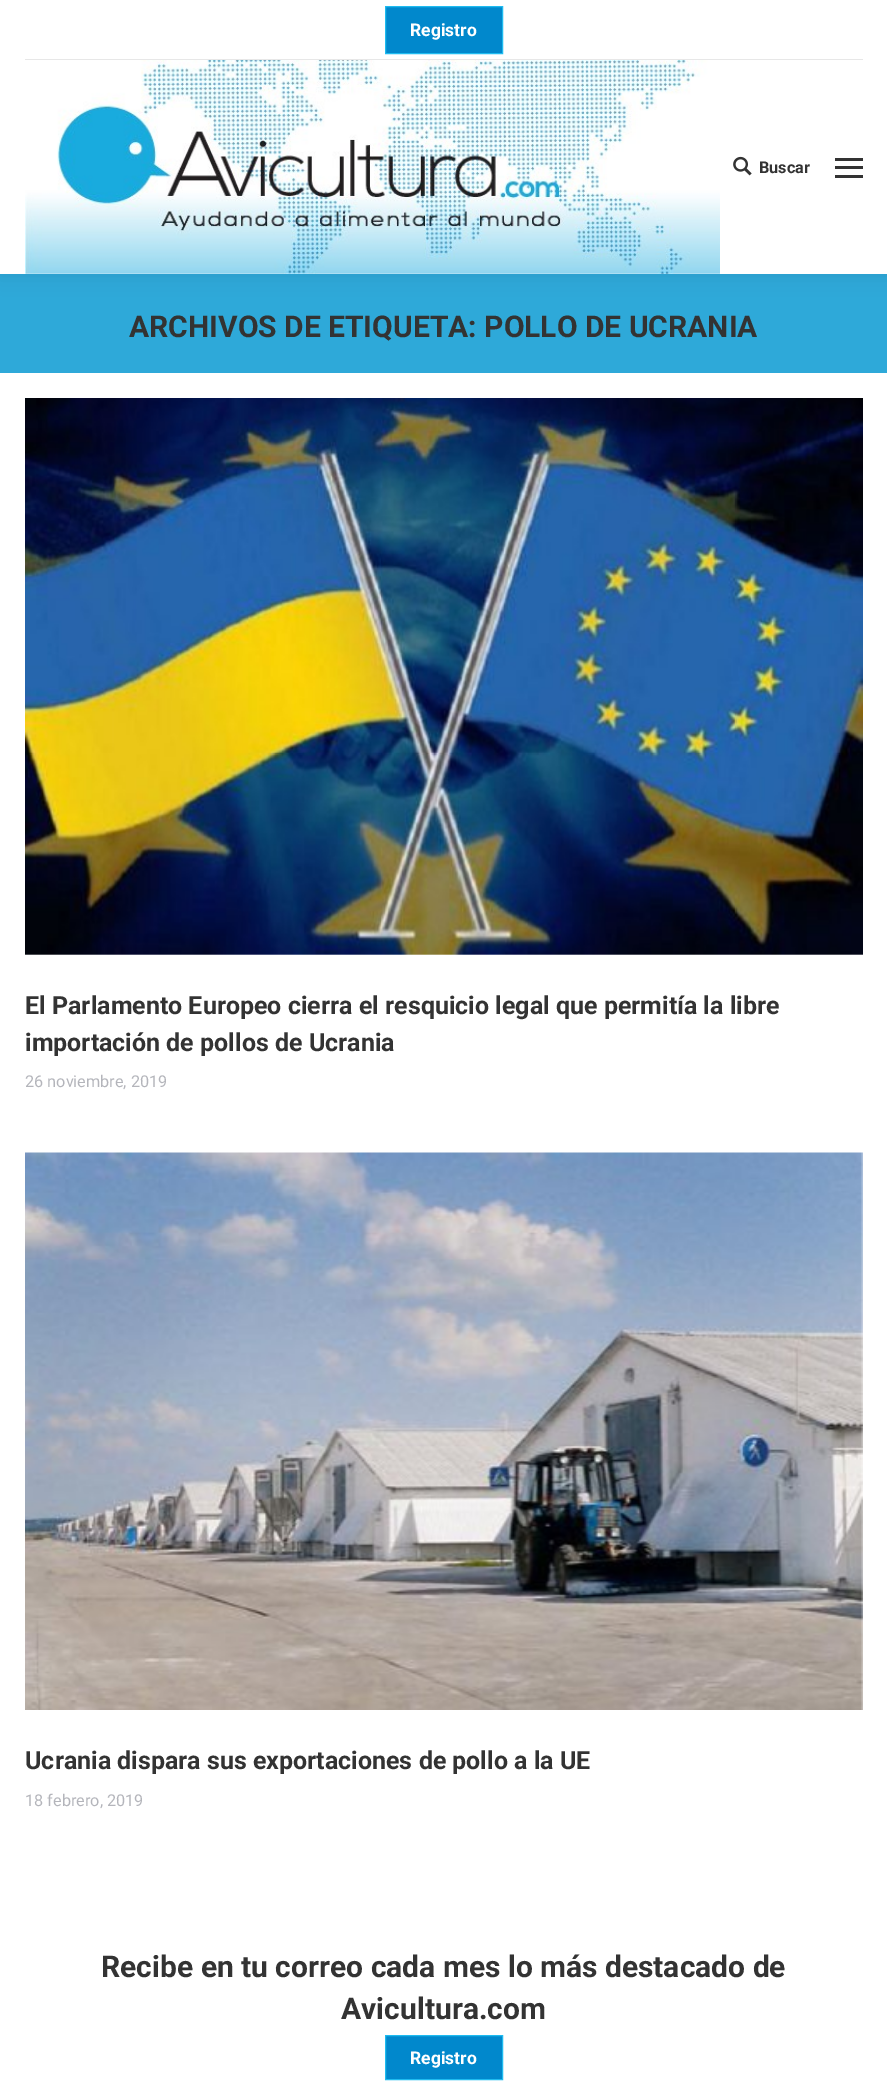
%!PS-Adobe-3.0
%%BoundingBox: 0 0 887 2093
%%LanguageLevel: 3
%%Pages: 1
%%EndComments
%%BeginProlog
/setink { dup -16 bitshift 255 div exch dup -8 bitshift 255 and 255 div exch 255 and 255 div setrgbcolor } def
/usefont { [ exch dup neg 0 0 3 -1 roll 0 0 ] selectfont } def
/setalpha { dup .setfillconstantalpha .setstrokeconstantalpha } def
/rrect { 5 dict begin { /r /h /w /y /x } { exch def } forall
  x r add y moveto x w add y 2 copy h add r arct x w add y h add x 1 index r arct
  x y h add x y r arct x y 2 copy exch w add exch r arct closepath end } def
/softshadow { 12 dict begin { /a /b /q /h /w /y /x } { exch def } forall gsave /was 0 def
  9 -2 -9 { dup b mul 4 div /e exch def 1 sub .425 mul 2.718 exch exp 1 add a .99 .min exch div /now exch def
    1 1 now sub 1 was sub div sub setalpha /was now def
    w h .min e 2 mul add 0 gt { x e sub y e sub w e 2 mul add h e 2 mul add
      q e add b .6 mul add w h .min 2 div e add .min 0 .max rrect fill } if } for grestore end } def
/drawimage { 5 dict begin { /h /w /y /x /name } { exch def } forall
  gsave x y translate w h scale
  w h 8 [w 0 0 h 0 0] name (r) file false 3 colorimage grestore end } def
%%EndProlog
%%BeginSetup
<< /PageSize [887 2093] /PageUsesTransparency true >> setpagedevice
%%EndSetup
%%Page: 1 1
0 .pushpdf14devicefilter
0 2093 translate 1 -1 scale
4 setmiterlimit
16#FFFFFF setink
0 0 887 2093 rectfill
16#2EA9D9 setink
0 274 887 99 rectfill
16#000000 setink
-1 -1 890 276 0 9.5 0.07 softshadow
16#FFFFFF setink
0 0 887 274 rectfill
16#0188CC setink
385.5 6.5 moveto 502.5 6.5 lineto 502.5 53.5 lineto 385.5 53.5 lineto closepath gsave fill grestore
16#1EBBF0 setink
stroke
/Roboto-Bold 17.5 usefont
16#FFFFFF setink
410 36 moveto (Registro) show
16#E7E7E7 setink
25 59 838 1 rectfill
(img1.raw) 25 60 695 214 drawimage
(img2.raw) 733 156 19 20 drawimage
/Roboto-Bold 16.25 usefont
16#333333 setink
759 173 moveto (Buscar) show
[
    [835 166 28 3 16#333333]
    [835 158 28 3 16#333333]
    [835 175 28 3 16#333333]
] { aload pop setink rectfill } forall
/Roboto-Bold 30 usefont
129 337 moveto (ARCHIVOS DE ETIQUETA: POLLO DE UCRANIA) show
(img3.raw) 25 398 838 557 drawimage
/Roboto-Bold 25 usefont
25 1014 moveto (El Parlamento Europeo cierra el resquicio legal que permitía la libre) show
25 1051 moveto (importación de pollos de Ucrania) show
/Roboto-Regular 16.25 usefont
16#B4B5BB setink
25 1087 moveto (26 noviembre, 2019) show
(img4.raw) 25 1152 838 558 drawimage
/Roboto-Bold 25 usefont
16#333333 setink
25 1769 moveto (Ucrania dispara sus exportaciones de pollo a la UE) show
/Roboto-Regular 16.25 usefont
16#B4B5BB setink
25 1806 moveto (18 febrero, 2019) show
/Roboto-Bold 30 usefont
16#333333 setink
101 1977 moveto (Recibe en tu correo cada mes lo más destacado de) show
341 2019 moveto (Avicultura.com) show
16#0188CC setink
385.5 2035.5 moveto 502.5 2035.5 lineto 502.5 2079.5 lineto 385.5 2079.5 lineto closepath gsave fill grestore
16#1EBBF0 setink
stroke
/Roboto-Bold 17.5 usefont
16#FFFFFF setink
410 2064 moveto (Registro) show
.poppdf14devicefilter showpage
%%EOF
